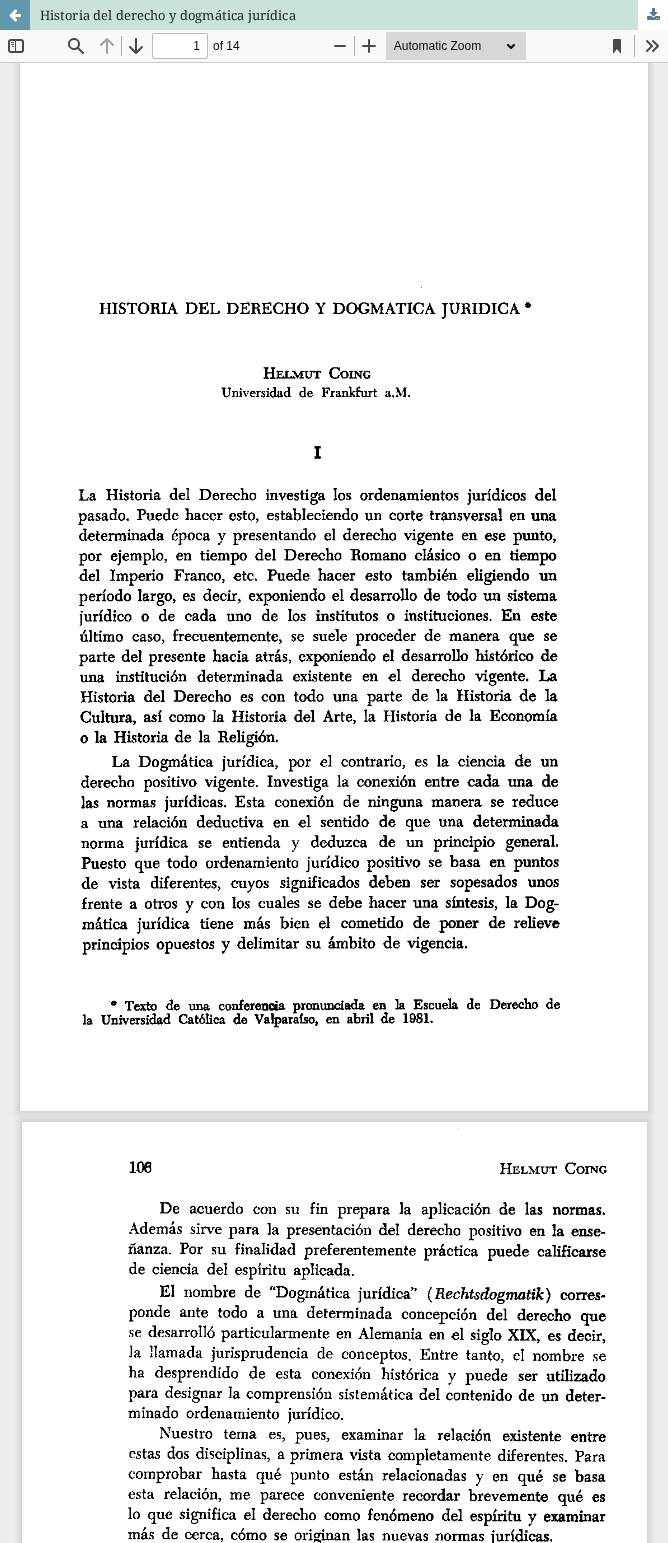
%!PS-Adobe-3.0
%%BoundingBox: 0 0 668 1543
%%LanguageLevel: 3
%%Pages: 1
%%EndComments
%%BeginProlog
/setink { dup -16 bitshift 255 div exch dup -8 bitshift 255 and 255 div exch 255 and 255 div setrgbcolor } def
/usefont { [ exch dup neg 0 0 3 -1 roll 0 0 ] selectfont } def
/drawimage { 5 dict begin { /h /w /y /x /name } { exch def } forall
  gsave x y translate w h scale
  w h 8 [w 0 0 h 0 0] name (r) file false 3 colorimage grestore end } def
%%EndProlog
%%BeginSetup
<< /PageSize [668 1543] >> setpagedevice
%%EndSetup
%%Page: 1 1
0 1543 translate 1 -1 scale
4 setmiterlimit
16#FFFFFF setink
0 0 668 1543 rectfill
16#C9E3D8 setink
30 0 608 30 rectfill
16#6298AE setink
0 0 30 30 rectfill
(img1.raw) 9 9 12 13 drawimage
/NotoSerif-Regular 13 usefont
16#202423 setink
40 20 moveto (Historia del derecho y dogmática jurídica) show
(img2.raw) 647 8 13 12 drawimage
(img3.raw) 0 30 668 1513 drawimage
showpage
%%EOF
